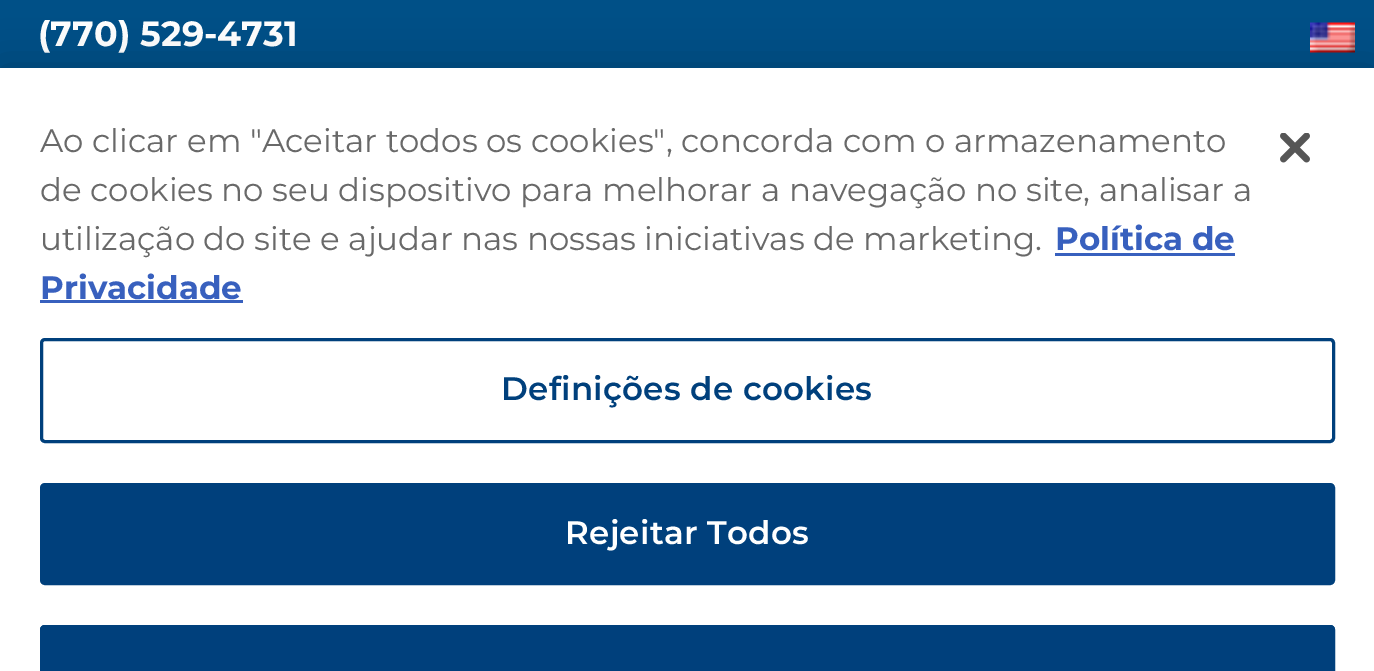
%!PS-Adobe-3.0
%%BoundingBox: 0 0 1374 671
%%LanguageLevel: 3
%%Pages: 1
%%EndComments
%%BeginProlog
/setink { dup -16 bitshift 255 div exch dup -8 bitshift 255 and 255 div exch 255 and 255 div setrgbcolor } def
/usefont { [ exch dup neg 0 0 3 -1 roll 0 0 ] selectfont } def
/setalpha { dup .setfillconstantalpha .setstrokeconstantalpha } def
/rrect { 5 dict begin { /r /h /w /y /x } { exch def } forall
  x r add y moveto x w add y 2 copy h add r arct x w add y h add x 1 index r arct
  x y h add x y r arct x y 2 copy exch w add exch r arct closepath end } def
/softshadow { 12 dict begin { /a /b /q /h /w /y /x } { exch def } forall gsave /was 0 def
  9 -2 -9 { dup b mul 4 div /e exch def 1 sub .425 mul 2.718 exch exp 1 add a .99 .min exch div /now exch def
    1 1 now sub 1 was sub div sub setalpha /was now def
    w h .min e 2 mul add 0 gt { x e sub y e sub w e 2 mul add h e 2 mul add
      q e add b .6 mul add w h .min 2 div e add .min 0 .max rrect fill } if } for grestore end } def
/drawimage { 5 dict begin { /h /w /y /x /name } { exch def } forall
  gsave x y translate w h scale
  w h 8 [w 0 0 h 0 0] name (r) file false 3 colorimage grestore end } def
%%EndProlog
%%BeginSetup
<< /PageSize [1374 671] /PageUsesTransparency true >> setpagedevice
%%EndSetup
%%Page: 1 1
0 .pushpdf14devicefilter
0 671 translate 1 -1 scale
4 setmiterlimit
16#005087 setink
0 0 1374 671 rectfill
/Montserrat-Bold 35 usefont
16#FFFFFF setink
38 46 moveto (\(770\) 529-4731) show
(img1.raw) 1310 22 45 31 drawimage
16#000000 setink
0 68 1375 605 0 22.5 0.2 softshadow
16#FFFFFF setink
0 68 1374 603 rectfill
/Montserrat-Regular 32.5 usefont
16#696969 setink
[
    [(Ao clicar em "Aceitar todos os cookies", concorda com o armazenamento) 40 152]
    [(de cookies no seu dispositivo para melhorar a navegação no site, analisar a) 40 201]
    [(utilização do site e ajudar nas nossas iniciativas de marketing.) 40 250]
] { aload pop moveto show } forall
/Montserrat-Bold 32.5 usefont
16#3860BE setink
1055 250 moveto (Política de) show
1055 253 180 3 rectfill
40 299 moveto (Privacidade) show
40 300 203 3 rectfill
16#00407C setink
3 setlinewidth
41.5 339.5 1292 102 3.5 rrect stroke
/Montserrat-SemiBold 32.5 usefont
501 400 moveto 0.3 0 (Definições de cookies) ashow
41.5 484.5 1292 99 3.5 rrect gsave fill grestore
stroke
16#FFFFFF setink
565 544 moveto 0.3 0 (Rejeitar Todos) ashow
16#00407C setink
45 625 moveto 1330 625 lineto 1333 625 1335 627 1335 630 curveto 1335 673 lineto 40 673 lineto 40 630 lineto 40 627 42 625 45 625 curveto closepath fill
41.5 626.5 1292 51 3.5 rrect stroke
(img2.raw) 1280 133 30 30 drawimage
.poppdf14devicefilter showpage
%%EOF
